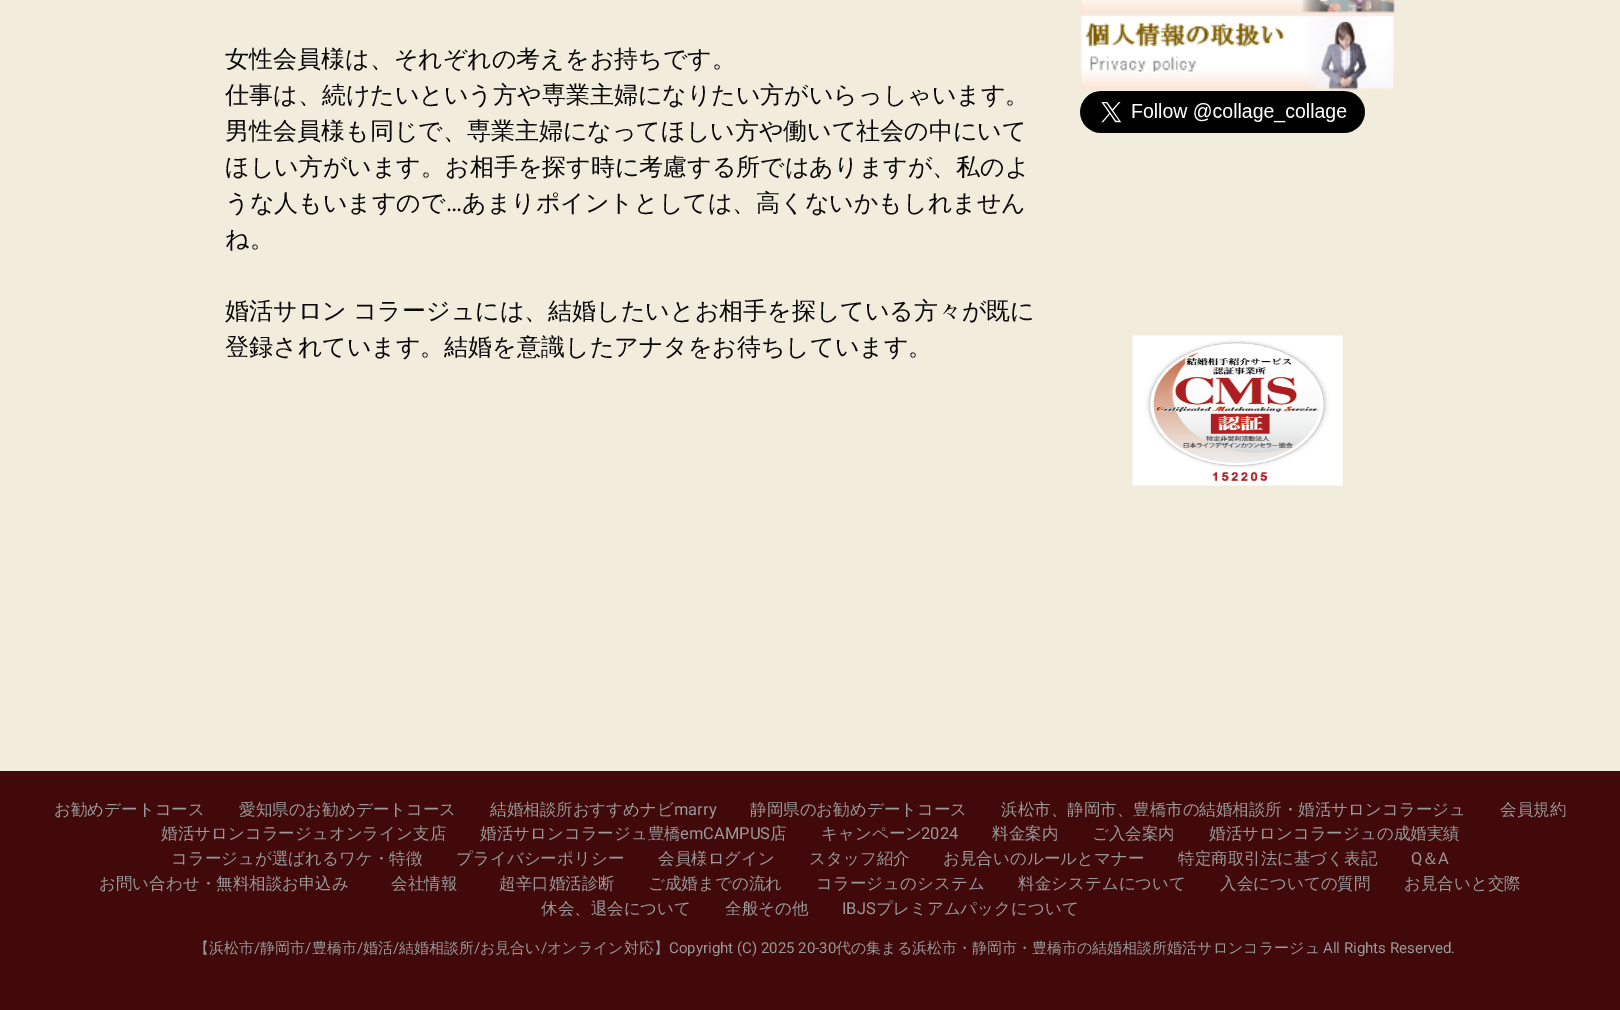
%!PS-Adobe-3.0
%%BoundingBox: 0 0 1620 1010
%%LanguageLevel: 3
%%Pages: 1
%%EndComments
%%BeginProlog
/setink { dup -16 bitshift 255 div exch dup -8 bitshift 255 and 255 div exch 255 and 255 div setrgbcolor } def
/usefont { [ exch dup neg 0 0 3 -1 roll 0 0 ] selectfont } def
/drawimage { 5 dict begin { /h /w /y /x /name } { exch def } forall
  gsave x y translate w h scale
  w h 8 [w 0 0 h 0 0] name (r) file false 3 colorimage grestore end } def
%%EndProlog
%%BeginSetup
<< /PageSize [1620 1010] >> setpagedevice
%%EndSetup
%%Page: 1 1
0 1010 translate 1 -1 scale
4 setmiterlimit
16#F2ECDC setink
0 0 1620 1010 rectfill
/WenQuanYiZenHei-Medium 24 usefont
16#080808 setink
[
    [(女性会員様は、それぞれの考えをお持ちです。) 225 67]
    [(仕事は、続けたいという方や専業主婦になりたい方がいらっしゃいます。) 225 103]
    [(男性会員様も同じで、専業主婦になってほしい方や働いて社会の中にいて) 225 139]
    [(ほしい方がいます。お相手を探す時に考慮する所ではありますが、私のよ) 225 175]
    [(うな人もいますので) 225 211]
] { aload pop moveto show } forall
/Roboto-Regular 24 usefont
446 211 moveto (…) show
/WenQuanYiZenHei-Medium 24 usefont
462 211 moveto (あまりポイントとしては、高くないかもしれません) show
225 247 moveto (ね。) show
225 319 moveto -1 0 32 (婚活サロン コラージュには、結婚したいとお相手を探している方々が既に) widthshow
225 355 moveto (登録されています。結婚を意識したアナタをお待ちしています。) show
(img1.raw) 1080 0 315 13 drawimage
(img2.raw) 1080 14 315 76 drawimage
(img3.raw) 1080 91 285 42 drawimage
(img4.raw) 1132 335 211 151 drawimage
16#41090A setink
0 771 1620 239 rectfill
/WenQuanYiZenHei-Medium 16.5 usefont
16#999999 setink
[
    [(お勧めデートコース) 54 815]
    [(愛知県のお勧めデートコース) 239 815]
    [(結婚相談所おすすめナビ) 490 815]
] { aload pop moveto show } forall
/Roboto-Regular 16.5 usefont
674 815 moveto (marry) show
/WenQuanYiZenHei-Medium 16.5 usefont
[
    [(静岡県のお勧めデートコース) 750 815]
    [(浜松市、静岡市、豊橋市の結婚相談所・婚活サロンコラージュ) 1001 815]
    [(会員規約) 1500 815]
    [(婚活サロンコラージュオンライン支店) 161 839]
    [(婚活サロンコラージュ豊橋) 480 839]
] { aload pop moveto show } forall
/Roboto-Regular 16.5 usefont
680 839 moveto (emCAMPUS) show
/WenQuanYiZenHei-Medium 16.5 usefont
770 839 moveto (店) show
821 839 moveto (キャンペーン) show
/Roboto-Regular 16.5 usefont
921 839 moveto (2024) show
/WenQuanYiZenHei-Medium 16.5 usefont
[
    [(料金案内) 992 839]
    [(ご入会案内) 1092 839]
    [(婚活サロンコラージュの成婚実績) 1209 839]
    [(コラージュが選ばれるワケ・特徴) 171 864]
    [(プライバシーポリシー) 456 864]
    [(会員様ログイン) 658 864]
    [(スタッフ紹介) 809 864]
    [(お見合いのルールとマナー) 943 864]
    [(特定商取引法に基づく表記) 1178 864]
] { aload pop moveto show } forall
/Roboto-Regular 16.5 usefont
1411 864 moveto (Q) show
/WenQuanYiZenHei-Medium 16.5 usefont
1422 864 moveto (＆) show
/Roboto-Regular 16.5 usefont
1438 864 moveto (A) show
/WenQuanYiZenHei-Medium 16.5 usefont
[
    [(お問い合わせ・無料相談お申込み) 99 889]
    [(会社情報) 391 889]
    [(超辛口婚活診断) 499 889]
    [(ご成婚までの流れ) 648 889]
    [(コラージュのシステム) 816 889]
    [(料金システムについて) 1018 889]
    [(入会についての質問) 1220 889]
    [(お見合いと交際) 1404 889]
    [(休会、退会について) 541 914]
    [(全般その他) 725 914]
] { aload pop moveto show } forall
/Roboto-Regular 16.5 usefont
842 914 moveto (IBJS) show
/WenQuanYiZenHei-Medium 16.5 usefont
876 914 moveto (プレミアムパックについて) show
/WenQuanYiZenHei-Medium 15 usefont
194 953 moveto (【浜松市) show
/Roboto-Regular 15 usefont
254 953 moveto (/) show
/WenQuanYiZenHei-Medium 15 usefont
260 953 moveto (静岡市) show
/Roboto-Regular 15 usefont
305 953 moveto (/) show
/WenQuanYiZenHei-Medium 15 usefont
312 953 moveto (豊橋市) show
/Roboto-Regular 15 usefont
357 953 moveto (/) show
/WenQuanYiZenHei-Medium 15 usefont
363 953 moveto (婚活) show
/Roboto-Regular 15 usefont
393 953 moveto (/) show
/WenQuanYiZenHei-Medium 15 usefont
399 953 moveto (結婚相談所) show
/Roboto-Regular 15 usefont
474 953 moveto (/) show
/WenQuanYiZenHei-Medium 15 usefont
480 953 moveto (お見合い) show
/Roboto-Regular 15 usefont
541 953 moveto (/) show
/WenQuanYiZenHei-Medium 15 usefont
547 953 moveto (オンライン対応】) show
/Roboto-Regular 15 usefont
669 953 moveto (Copyright \(C\) 2025 20-30) show
/WenQuanYiZenHei-Medium 15 usefont
836 953 moveto (代の集まる浜松市・静岡市・豊橋市の結婚相談所婚活サロンコラージュ) show
/Roboto-Regular 15 usefont
1323 953 moveto (All Rights Reserved.) show
showpage
%%EOF
